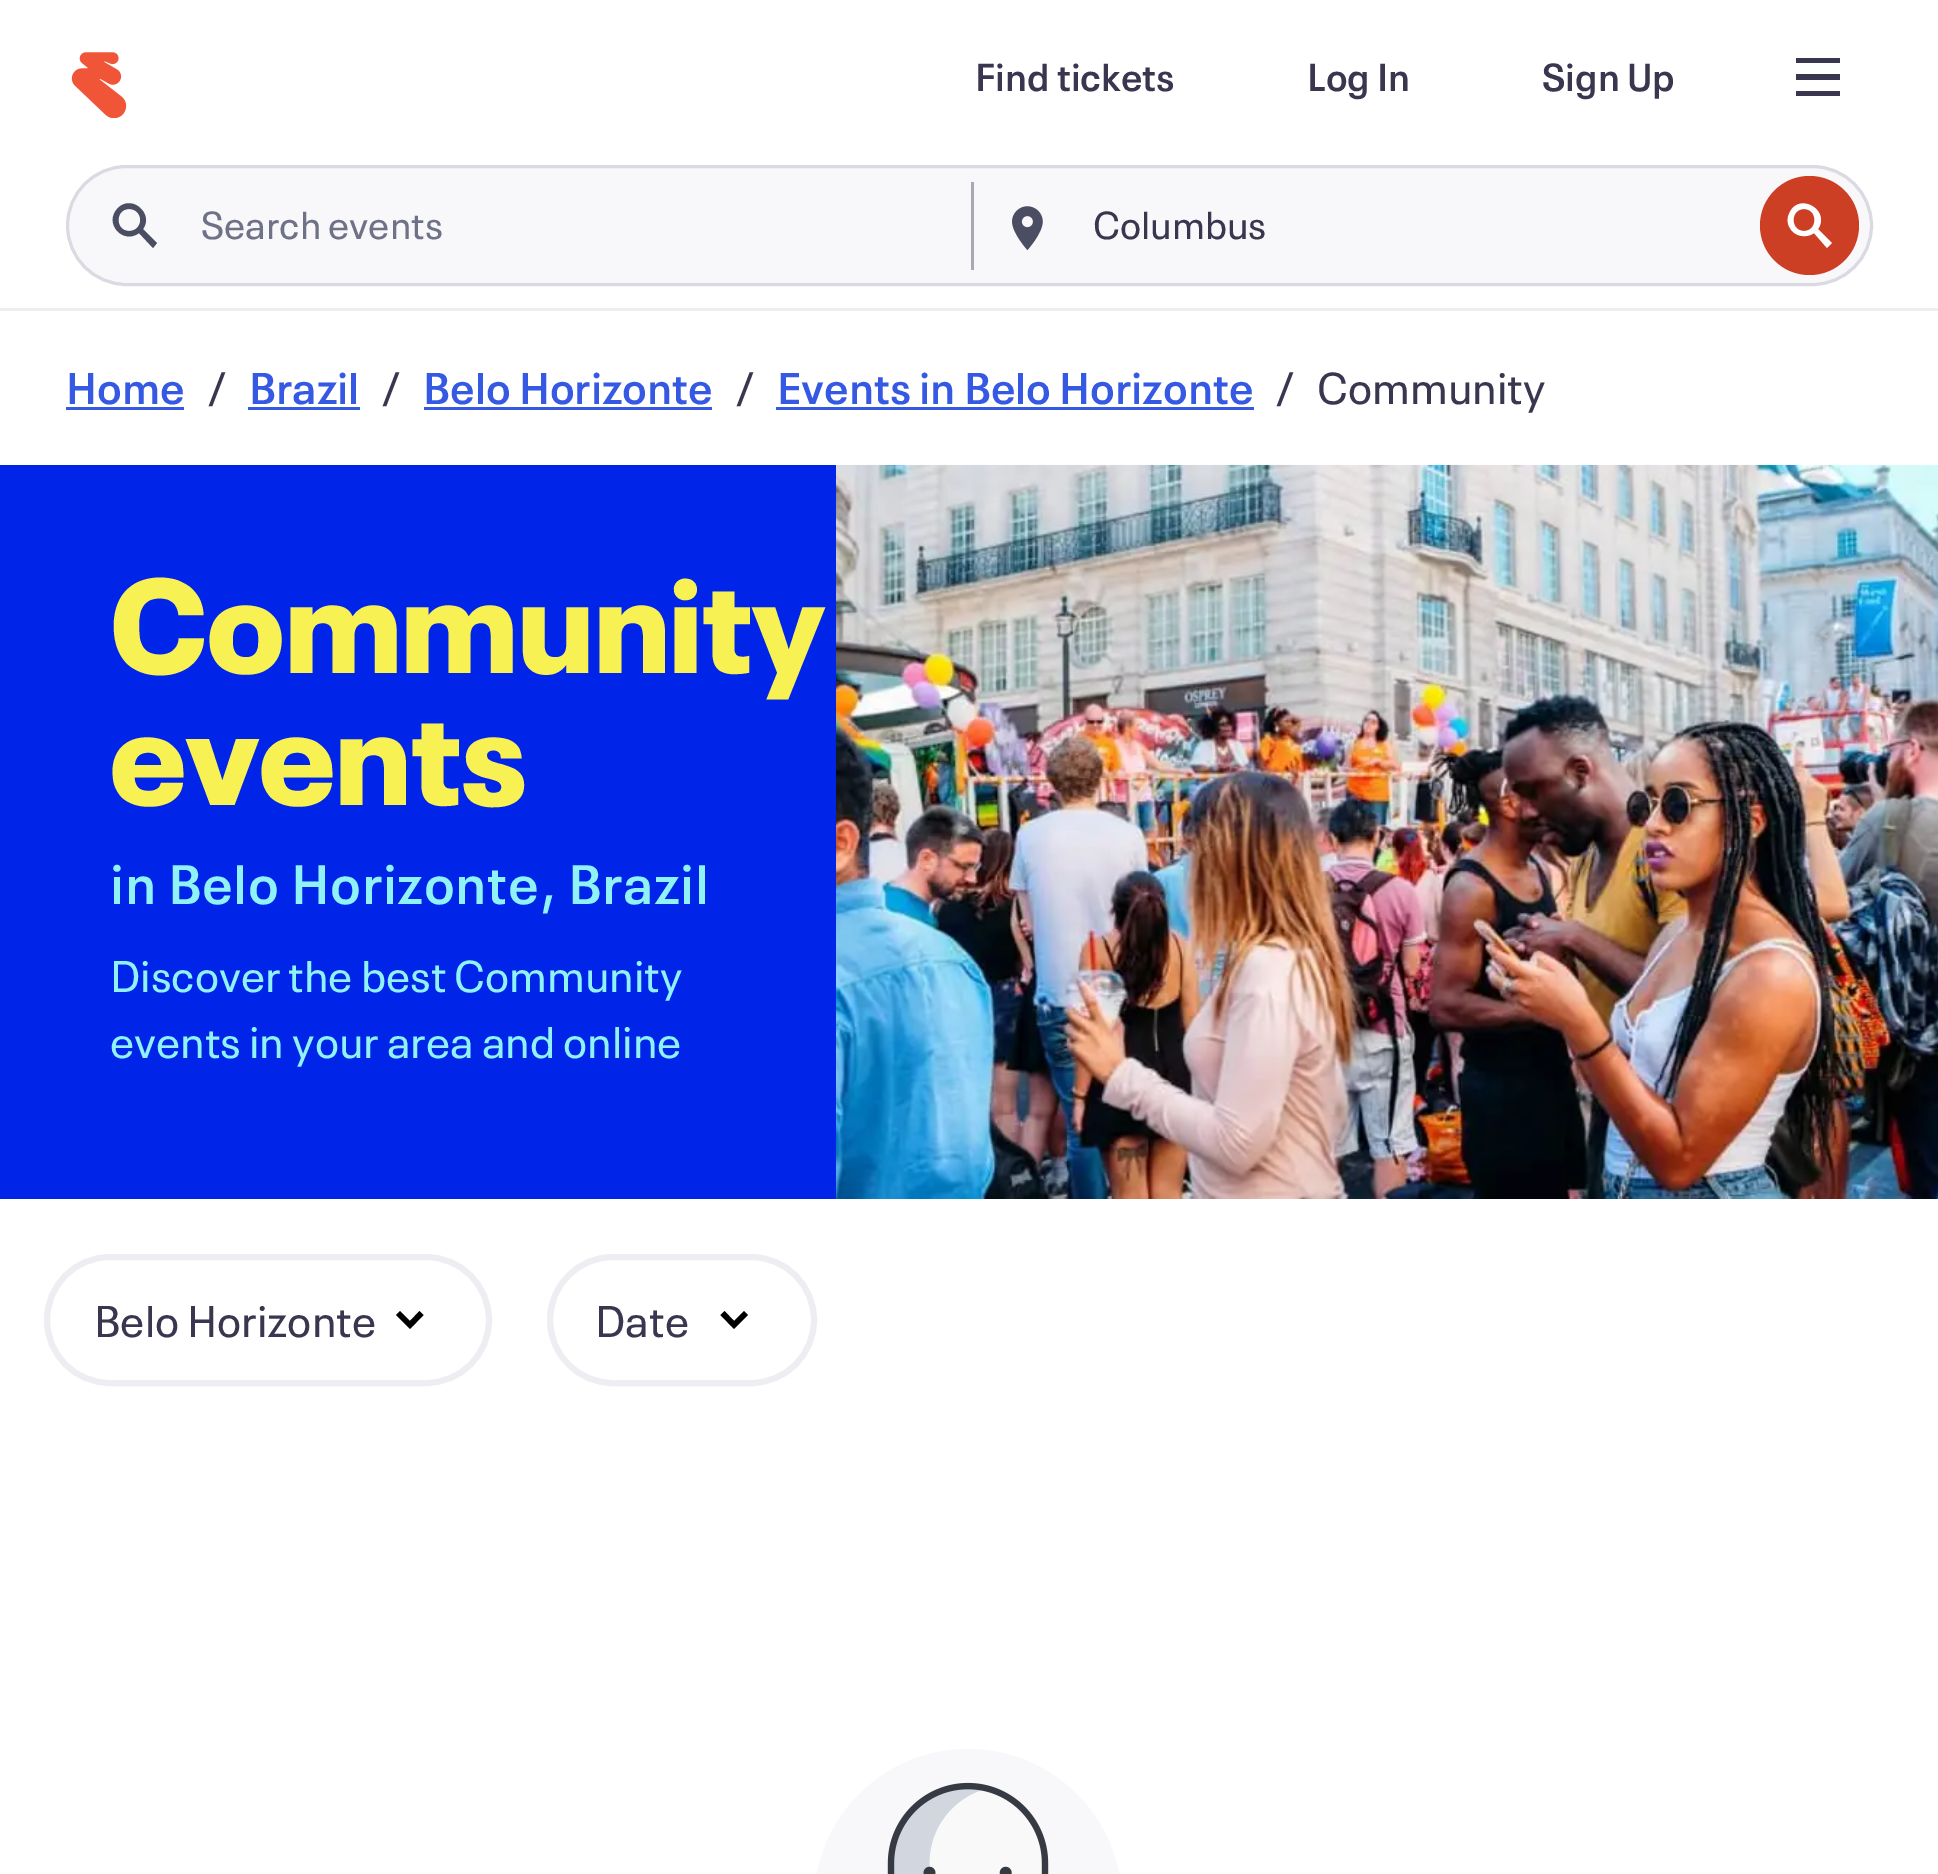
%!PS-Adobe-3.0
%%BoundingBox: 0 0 1938 1874
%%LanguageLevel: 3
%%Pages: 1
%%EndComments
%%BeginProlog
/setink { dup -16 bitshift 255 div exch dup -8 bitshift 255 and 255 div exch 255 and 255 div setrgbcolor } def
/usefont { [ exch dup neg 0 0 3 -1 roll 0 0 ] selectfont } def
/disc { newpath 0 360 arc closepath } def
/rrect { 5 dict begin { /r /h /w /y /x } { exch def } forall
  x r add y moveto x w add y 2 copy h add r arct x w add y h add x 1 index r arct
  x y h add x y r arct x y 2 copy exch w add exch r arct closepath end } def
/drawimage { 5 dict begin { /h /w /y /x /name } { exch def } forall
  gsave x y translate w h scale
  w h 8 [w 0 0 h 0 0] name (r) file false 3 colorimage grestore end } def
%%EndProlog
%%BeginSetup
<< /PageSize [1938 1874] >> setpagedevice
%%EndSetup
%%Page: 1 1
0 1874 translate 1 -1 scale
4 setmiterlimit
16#FFFFFF setink
0 0 1938 1874 rectfill
16#EEEDF2 setink
0 308 1938 3 rectfill
(img1.raw) 71 52 56 66 drawimage
/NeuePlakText-SemiBold 38.5 usefont
16#39364F setink
[
    [(Find tickets) 975 91]
    [(Log In) 1307 91]
    [(Sign Up) 1542 91]
] { aload pop moveto show } forall
1840 58 moveto 1796 58 lineto 1796 63 lineto 1840 63 lineto closepath 1796 74 moveto 1840 74 lineto 1840 80 lineto 1796 80 lineto closepath 1796 91 moveto 1840 91 lineto 1840 96 lineto 1796 96 lineto closepath fill
16#F8F7FA setink
67.5 166.5 1804 118 59 rrect gsave fill grestore
16#DBDAE3 setink
3 setlinewidth
stroke
16#4B4D63 setink
129 231 moveto 144 231 144 209 129 209 curveto 115 209 115 231 129 231 curveto closepath 139 233 moveto 123 245 103 223 118 208 curveto 132 194 154 214 143 229 curveto 157 243 lineto 153 248 lineto closepath eofill
/NeuePlakText-Regular 38.5 usefont
16#6F7287 setink
201 239 moveto (Search events) show
16#A9A8B3 setink
971 182 3 88 rectfill
(img2.raw) 1012 206 31 45 drawimage
16#39364F setink
1093 239 moveto (Columbus) show
16#CC3F24 setink
1809.5 225.5 49.5 disc fill
16#FFFFFF setink
1818 229 moveto 1831 210 1798 191 1789 214 curveto 1787 218 1787 224 1790 228 curveto 1794 236 1806 239 1814 233 curveto 1827 248 lineto 1832 243 lineto closepath 1804 231 moveto 1818 231 1818 209 1804 209 curveto 1790 209 1790 231 1804 231 curveto closepath eofill
/NeuePlakText-SemiBold 44 usefont
16#3659E3 setink
66 404 moveto (Home) show
66 407 118 3 rectfill
/NeuePlakText-Regular 44 usefont
16#39364F setink
207 404 moveto (/) show
/NeuePlakText-SemiBold 44 usefont
16#3659E3 setink
249 404 moveto (Brazil) show
248 407 112 3 rectfill
/NeuePlakText-Regular 44 usefont
16#39364F setink
381 404 moveto (/) show
/NeuePlakText-SemiBold 44 usefont
16#3659E3 setink
423 404 moveto (Belo Horizonte) show
424 407 288 3 rectfill
/NeuePlakText-Regular 44 usefont
16#39364F setink
735 404 moveto (/) show
/NeuePlakText-SemiBold 44 usefont
16#3659E3 setink
777 404 moveto (Events in Belo Horizonte) show
776 407 478 3 rectfill
/NeuePlakText-Regular 44 usefont
16#39364F setink
1275 404 moveto (/) show
1317 404 moveto (Community) show
16#0124E9 setink
0 465 836 734 rectfill
/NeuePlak-Black 132 usefont
16#F7F154 setink
110 673 moveto (Community) show
110 805 moveto (events) show
/NeuePlakText-SemiBold 55 usefont
16#8FF2F7 setink
110 904 moveto 0.7 0 (in Belo Horizonte, Brazil) ashow
/NeuePlakText-Regular 44 usefont
110 992 moveto (Discover the best Community) show
110 1058 moveto (events in your area and online) show
(img3.raw) 836 464 1102 735 drawimage
16#EEEDF2 setink
6 setlinewidth
47 1257 442 126 63 rrect stroke
16#39364F setink
94 1337 moveto (Belo Horizonte) show
16#000000 setink
396 1315 moveto 410 1329 lineto 423.5 1315 lineto 419.5 1311 lineto 410 1321 lineto 400 1311 lineto closepath eofill
16#EEEDF2 setink
550 1257 264 126 63 rrect stroke
16#39364F setink
595 1337 moveto (Date) show
16#000000 setink
720.5 1315 moveto 734 1329 lineto 748 1315 lineto 744 1311 lineto 734 1321 lineto 724.5 1311 lineto closepath eofill
16#F8F7FA setink
814 1749 308 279 154 rrect fill
(img4.raw) 887 1782 162 92 drawimage
showpage
%%EOF
